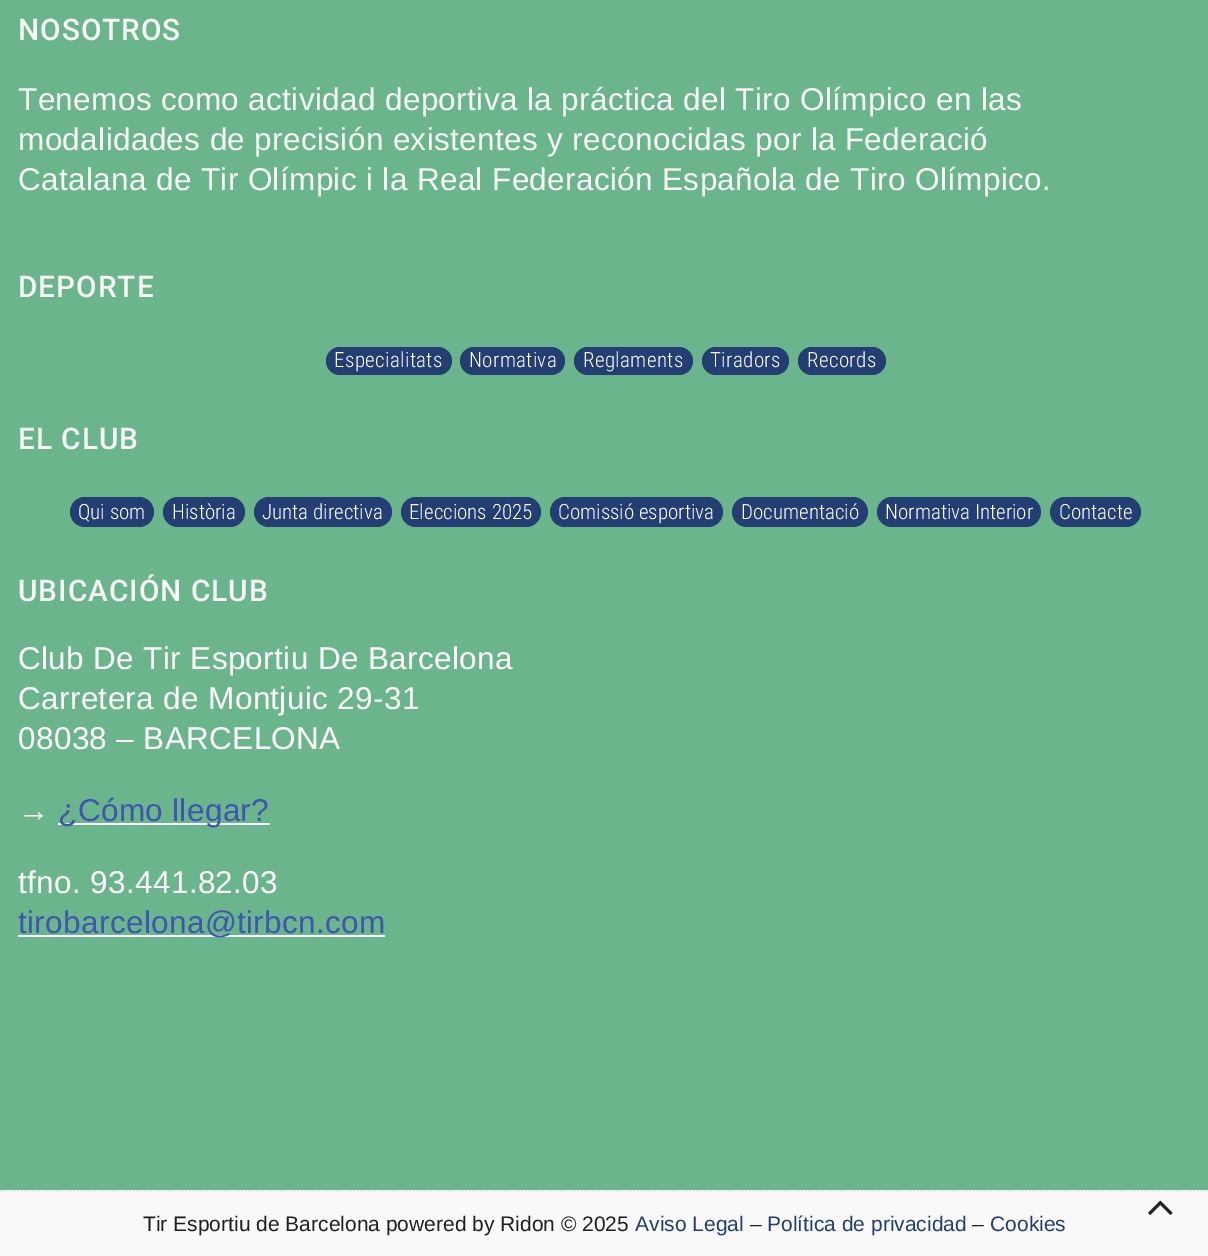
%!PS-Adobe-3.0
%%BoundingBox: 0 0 1208 1256
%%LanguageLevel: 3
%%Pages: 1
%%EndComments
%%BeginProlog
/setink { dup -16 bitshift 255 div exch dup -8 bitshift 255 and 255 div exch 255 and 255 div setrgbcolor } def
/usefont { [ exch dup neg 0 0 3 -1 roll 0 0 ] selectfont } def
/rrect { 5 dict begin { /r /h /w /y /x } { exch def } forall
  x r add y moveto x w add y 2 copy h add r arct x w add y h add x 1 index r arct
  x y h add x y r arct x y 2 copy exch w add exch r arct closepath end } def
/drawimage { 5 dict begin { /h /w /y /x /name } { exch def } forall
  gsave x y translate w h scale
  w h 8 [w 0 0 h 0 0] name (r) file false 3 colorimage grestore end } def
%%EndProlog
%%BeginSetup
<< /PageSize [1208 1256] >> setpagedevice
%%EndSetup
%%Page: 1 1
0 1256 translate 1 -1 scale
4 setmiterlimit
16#F9F9F9 setink
0 0 1208 1256 rectfill
16#6AB58B setink
0 0 1208 1190 rectfill
/Roboto-Medium 29.75 usefont
16#F9F9F9 setink
18 40 moveto 1 0 (NOSOTROS) ashow
/LiberationSans-Regular 31.5 usefont
18 110 moveto 0.35 0 (Tenemos como actividad deportiva la práctica del Tiro Olímpico en las) ashow
18 150 moveto 0.35 0 (modalidades de precisión existentes y reconocidas por la Federació) ashow
18 190 moveto 0.35 0 (Catalana de Tir Olímpic i la Real Federación Española de Tiro Olímpico.) ashow
/Roboto-Medium 29.75 usefont
18 297 moveto 1 0 (DEPORTE) ashow
16#223E72 setink
326 347 126 28 14 rrect fill
/RobotoCondensed-Light 21 usefont
16#FFFFFF setink
334 367 moveto 0.35 0 (Especialitats) ashow
16#223E72 setink
460 347 105 28 14 rrect fill
16#FFFFFF setink
469 367 moveto 0.35 0 (Normativa) ashow
16#223E72 setink
574 347 119 28 14 rrect fill
16#FFFFFF setink
583 367 moveto 0.35 0 (Reglaments) ashow
16#223E72 setink
702 347 87 28 14 rrect fill
16#FFFFFF setink
710 367 moveto 0.35 0 (Tiradors) ashow
16#223E72 setink
798 347 88 28 14 rrect fill
16#FFFFFF setink
807 367 moveto 0.35 0 (Records) ashow
/Roboto-Medium 29.75 usefont
16#F9F9F9 setink
18 449 moveto 1 0 (EL CLUB) ashow
16#223E72 setink
70 497 84 30 15 rrect fill
/RobotoCondensed-Light 21 usefont
16#FFFFFF setink
78 519 moveto (Qui som) show
16#223E72 setink
163 497 82 30 15 rrect fill
16#FFFFFF setink
172 519 moveto (Història) show
16#223E72 setink
254 497 138 30 15 rrect fill
16#FFFFFF setink
262 519 moveto (Junta directiva) show
16#223E72 setink
401 497 140 30 15 rrect fill
16#FFFFFF setink
409 519 moveto (Eleccions 2025) show
16#223E72 setink
550 497 173 30 15 rrect fill
16#FFFFFF setink
558 519 moveto (Comissió esportiva) show
16#223E72 setink
732 497 136 30 15 rrect fill
16#FFFFFF setink
741 519 moveto (Documentació) show
16#223E72 setink
877 497 164 30 15 rrect fill
16#FFFFFF setink
885 519 moveto (Normativa Interior) show
16#223E72 setink
1050 497 91 30 15 rrect fill
16#FFFFFF setink
1059 519 moveto (Contacte) show
/Roboto-Medium 29.75 usefont
16#F9F9F9 setink
18 601 moveto 1 0 (UBICACIÓN CLUB) ashow
/LiberationSans-Regular 31.5 usefont
16#FFFFFF setink
18 669 moveto 0.35 0 (Club De Tir Esportiu De Barcelona) ashow
18 709 moveto 0.35 0 (Carretera de Montjuic 29-31) ashow
18 749 moveto 0.35 0 (08038 – BARCELONA) ashow
18 821 moveto 0.35 0 (→) ashow
58 823 212 2 rectfill
16#4054B2 setink
58 821 moveto 0.35 0 (¿Cómo llegar?) ashow
16#FFFFFF setink
18 893 moveto 0.35 0 (tfno. 93.441.82.03) ashow
18 935 367 2 rectfill
16#4054B2 setink
18 933 moveto 0.35 0 (tirobarcelona@tirbcn.com) ashow
16#E8E8E8 setink
1.8 setlinewidth
[1.75 1.75] 0 setdash
0 1191 moveto 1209 1191 lineto stroke
/LiberationSans-Regular 21 usefont
16#1F1F1F setink
143 1231 moveto (Tir Esportiu de Barcelona powered by Ridon © 2025) show
16#223E72 setink
635 1231 moveto (Aviso Legal) show
16#1F1F1F setink
750 1231 moveto (–) show
16#223E72 setink
767 1231 moveto (Política de privacidad) show
16#1F1F1F setink
972 1231 moveto (–) show
16#223E72 setink
990 1231 moveto (Cookies) show
(img1.raw) 1148 1200 25 15 drawimage
showpage
%%EOF
